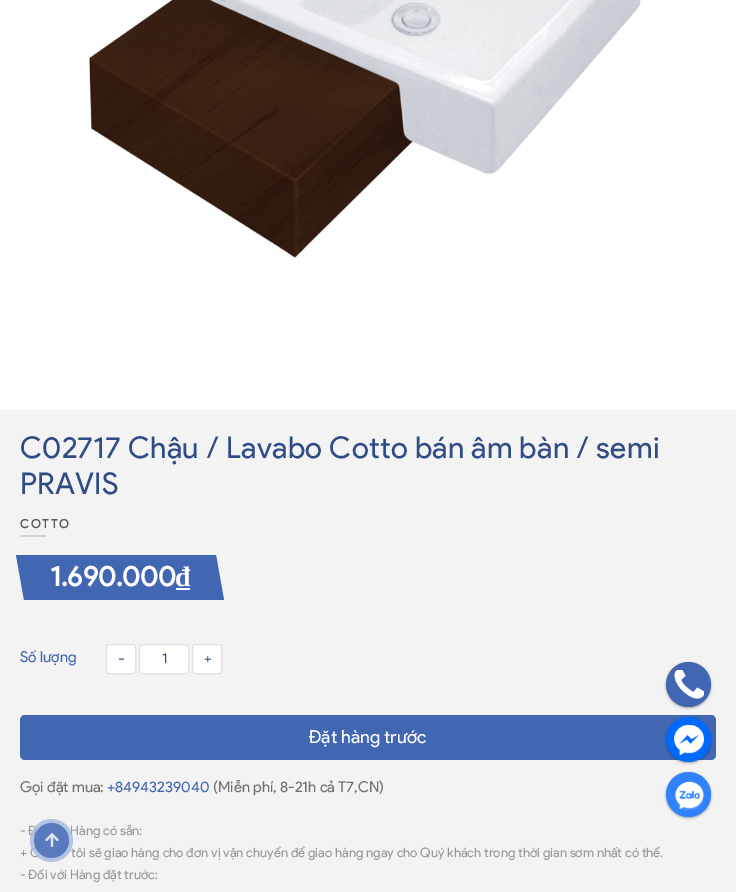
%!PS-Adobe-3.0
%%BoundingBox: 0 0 736 892
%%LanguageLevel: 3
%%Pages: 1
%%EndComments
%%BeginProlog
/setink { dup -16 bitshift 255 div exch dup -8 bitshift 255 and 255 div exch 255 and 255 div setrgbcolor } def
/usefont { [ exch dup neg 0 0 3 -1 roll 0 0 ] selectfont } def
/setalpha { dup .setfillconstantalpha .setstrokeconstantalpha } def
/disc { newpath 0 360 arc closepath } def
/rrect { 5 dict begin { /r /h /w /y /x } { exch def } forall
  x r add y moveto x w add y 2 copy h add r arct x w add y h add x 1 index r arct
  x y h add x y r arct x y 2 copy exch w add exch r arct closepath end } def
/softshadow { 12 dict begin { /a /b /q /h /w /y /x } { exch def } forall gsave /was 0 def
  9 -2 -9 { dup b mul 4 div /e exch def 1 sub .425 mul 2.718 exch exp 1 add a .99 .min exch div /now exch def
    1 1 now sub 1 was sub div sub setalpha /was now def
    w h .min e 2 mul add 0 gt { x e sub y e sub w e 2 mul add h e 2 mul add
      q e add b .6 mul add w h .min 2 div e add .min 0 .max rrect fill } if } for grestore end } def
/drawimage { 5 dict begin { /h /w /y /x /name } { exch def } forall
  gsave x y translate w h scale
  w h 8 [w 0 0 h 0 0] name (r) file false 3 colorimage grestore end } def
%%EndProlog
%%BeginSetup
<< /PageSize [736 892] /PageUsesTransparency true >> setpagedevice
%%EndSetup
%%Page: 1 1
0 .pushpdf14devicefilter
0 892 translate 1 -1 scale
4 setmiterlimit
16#FFFFFF setink
0 0 736 892 rectfill
(img1.raw) 89 0 552 258 drawimage
16#F3F3F3 setink
0 410 736 482 rectfill
/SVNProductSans-Regular 30 usefont
16#304C86 setink
20 458 moveto 0.3 0 (C02717 Chậu / Lavabo Cotto bán âm bàn / semi) ashow
20 494 moveto 0.3 0 (PRAVIS) ashow
/SVNProductSans-Bold 12 usefont
16#575757 setink
20 528 moveto 2 0 (COTTO) ashow
16#D3D3D3 setink
20 535 26 2 rectfill
16#4267B2 setink
16 555 moveto 216 555 lineto 224 600 lineto 24 600 lineto closepath fill
/SVNProductSans-Bold 28 usefont
16#FFFFFF setink
50 586 moveto (1.690.000) show
/LiberationSerif-Bold 28 usefont
176 586 moveto (₫) show
/SVNProductSans-Regular 15 usefont
16#4267B2 setink
20 662 moveto (Số lượng) show
16#FFFFFF setink
106.5 644.5 29 29 2.5 rrect gsave fill grestore
16#E1E1E1 setink
stroke
/SVNProductSans-Regular 16 usefont
16#304C86 setink
118 664 moveto (-) show
16#FFFFFF setink
139.5 644.5 49 29 2.5 rrect gsave fill grestore
16#E1E1E1 setink
stroke
/SVNProductSans-Regular 14 usefont
16#304C86 setink
162 663 moveto (1) show
16#FFFFFF setink
192.5 644.5 29 29 2.5 rrect gsave fill grestore
16#E1E1E1 setink
stroke
16#304C86 setink
204 663 moveto (+) show
16#4267B2 setink
20 715 696 45 5 rrect fill
/SVNProductSans-Regular 18 usefont
16#FFFFFF setink
309 743 moveto (Đặt hàng trước) show
/SVNProductSans-Regular 15 usefont
16#707070 setink
20 792 moveto (Gọi đặt mua:) show
16#4267B2 setink
107 792 moveto (+84943239040) show
16#707070 setink
213 792 moveto (\(Miễn phí, 8-21h cả T7,CN\)) show
/SVNProductSans-Regular 13 usefont
16#989898 setink
[
    [(- Đ) 20 835]
    [(Hàng có sẵn:) 70 835]
    [(+ C) 20 857]
    [(tôi sẽ giao hàng cho đơn vị vận chuyển để giao hàng ngay cho Quý khách trong thời gian sơm nhất có thể.) 71 857]
    [(- Đối với Hàng đặt trước:) 20 879]
] { aload pop moveto show } forall
16#000000 setink
666 663 45 45 22.5 1 0.24 softshadow
666 663 45 45 22.5 1.5 0.12 softshadow
16#4267B2 setink
688.5 684.5 22.5 disc fill
(img2.raw) 674 670 30 29 drawimage
16#000000 setink
666 718 45 45 22.5 1 0.24 softshadow
666 718 45 45 22.5 1.5 0.12 softshadow
16#006AFF setink
688.5 739.5 22.5 disc fill
(img3.raw) 674 725 30 30 drawimage
16#000000 setink
666 773 45 45 22.5 1 0.24 softshadow
666 773 45 45 22.5 1.5 0.12 softshadow
16#2F82FC setink
688.5 794.5 22.5 disc fill
(img4.raw) 674 781 30 29 drawimage
0.8 setalpha
16#A5B8DE setink
51.5 840.5 21.5 disc fill
16#4267B2 setink
51.5 840.5 17.5 disc fill
1 setalpha
(img5.raw) 45 833 14 14 drawimage
.poppdf14devicefilter showpage
%%EOF
